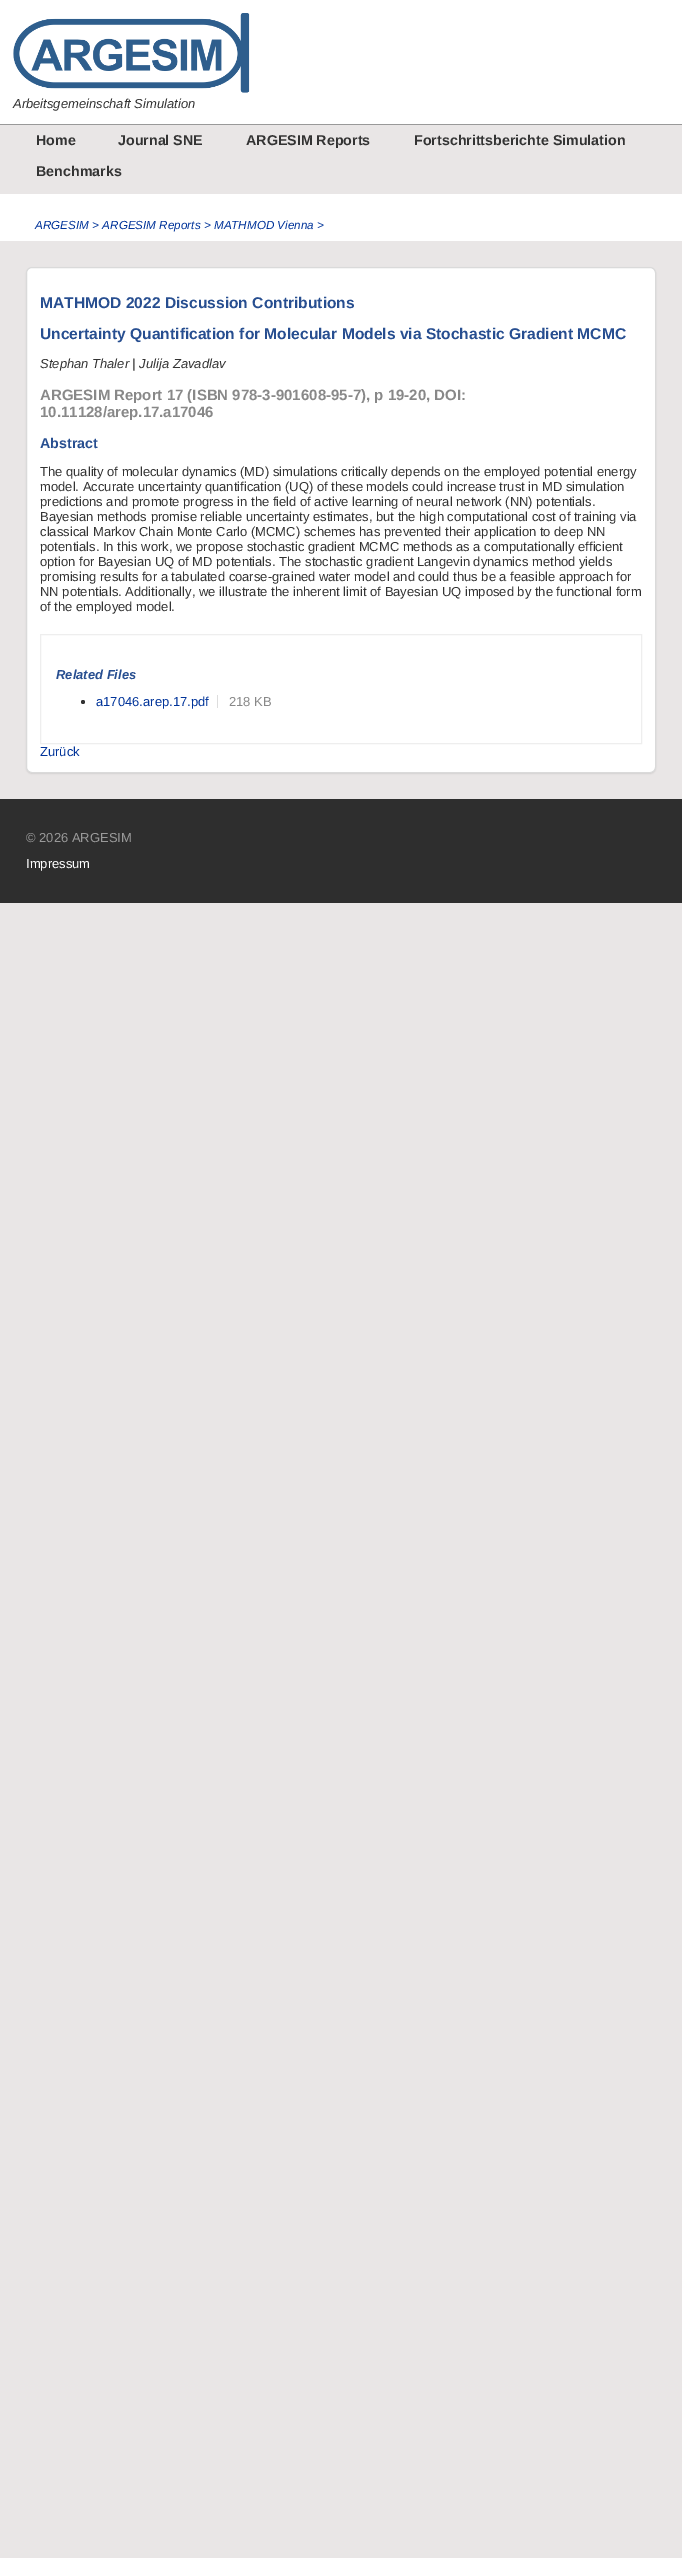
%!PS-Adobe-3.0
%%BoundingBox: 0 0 682 2558
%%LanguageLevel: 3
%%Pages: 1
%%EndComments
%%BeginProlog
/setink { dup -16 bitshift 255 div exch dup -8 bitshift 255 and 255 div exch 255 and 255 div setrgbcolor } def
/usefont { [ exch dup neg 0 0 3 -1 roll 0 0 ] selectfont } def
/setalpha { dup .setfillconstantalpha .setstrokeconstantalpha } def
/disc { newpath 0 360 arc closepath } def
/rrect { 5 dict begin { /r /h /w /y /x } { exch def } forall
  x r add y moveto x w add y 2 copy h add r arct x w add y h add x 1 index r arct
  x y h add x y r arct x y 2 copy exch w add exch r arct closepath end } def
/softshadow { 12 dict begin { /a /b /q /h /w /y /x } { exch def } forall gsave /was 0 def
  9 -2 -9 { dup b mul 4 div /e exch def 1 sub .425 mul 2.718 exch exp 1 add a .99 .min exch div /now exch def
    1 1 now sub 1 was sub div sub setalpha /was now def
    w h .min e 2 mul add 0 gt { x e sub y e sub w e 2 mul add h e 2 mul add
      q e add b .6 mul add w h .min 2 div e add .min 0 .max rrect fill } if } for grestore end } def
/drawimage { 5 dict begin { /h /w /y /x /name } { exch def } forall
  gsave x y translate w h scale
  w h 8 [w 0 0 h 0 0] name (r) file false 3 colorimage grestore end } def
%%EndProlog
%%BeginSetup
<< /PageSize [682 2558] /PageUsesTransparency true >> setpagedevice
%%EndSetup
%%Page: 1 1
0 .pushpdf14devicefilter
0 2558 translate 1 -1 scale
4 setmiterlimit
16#E9E6E6 setink
0 0 682 2558 rectfill
16#FFFFFF setink
0 0 682 124 rectfill
(img1.raw) 13 13 237 80 drawimage
/LiberationSans-Italic 13 usefont
16#333333 setink
13 108 moveto (Arbeitsgemeinschaft Simulation) show
16#999999 setink
0 124 682 1 rectfill
/LiberationSans-Bold 14.25 usefont
16#333333 setink
[
    [(Home) 36 145]
    [(Journal SNE) 118 145]
    [(ARGESIM Reports) 246 145]
    [(Fortschrittsberichte Simulation) 414 145]
    [(Benchmarks) 36 176]
] { aload pop moveto show } forall
16#FFFFFF setink
0 194 682 47 rectfill
/LiberationSans-Italic 11.7 usefont
16#003399 setink
35 229 moveto (ARGESIM > ARGESIM Reports > MATHMOD Vienna >) show
16#000000 setink
27 269 628 504 5 1 0.25 softshadow
16#FFFFFF setink
26.5 267.5 629 505 5.5 rrect gsave fill grestore
16#DADADA setink
stroke
/LiberationSans-Bold 15.6 usefont
16#274E90 setink
40 308 moveto (MATHMOD 2022 Discussion Contributions) show
40 339 moveto (Uncertainty Quantification for Molecular Models via Stochastic Gradient MCMC) show
/LiberationSans-Italic 13 usefont
16#333333 setink
40 368 moveto (Stephan Thaler | Julija Zavadlav) show
/LiberationSans-Bold 15 usefont
16#888888 setink
40 400 moveto (ARGESIM Report 17 \(ISBN 978-3-901608-95-7\), p 19-20, DOI:) show
40 417 moveto (10.11128/arep.17.a17046) show
/LiberationSans-Bold 14.25 usefont
16#274E90 setink
40 448 moveto (Abstract) show
/LiberationSans-Regular 13 usefont
16#333333 setink
[
    [(The quality of molecular dynamics \(MD\) simulations critically depends on the employed potential energy) 40 476]
    [(model. Accurate uncertainty quantification \(UQ\) of these models could increase trust in MD simulation) 40 491]
    [(predictions and promote progress in the field of active learning of neural network \(NN\) potentials.) 40 506]
    [(Bayesian methods promise reliable uncertainty estimates, but the high computational cost of training via) 40 521]
    [(classical Markov Chain Monte Carlo \(MCMC\) schemes has prevented their application to deep NN) 40 536]
    [(potentials. In this work, we propose stochastic gradient MCMC methods as a computationally efficient) 40 551]
    [(option for Bayesian UQ of MD potentials. The stochastic gradient Langevin dynamics method yields) 40 566]
    [(promising results for a tabulated coarse-grained water model and could thus be a feasible approach for) 40 581]
    [(NN potentials. Additionally, we illustrate the inherent limit of Bayesian UQ imposed by the functional form) 40 596]
    [(of the employed model.) 40 611]
] { aload pop moveto show } forall
16#EEEEEE setink
40.5 634.5 601 109 rectstroke
/LiberationSans-BoldItalic 13 usefont
16#274E90 setink
56 679 moveto (Related Files) show
16#333333 setink
83 702 2 disc fill
16#DDDDDD setink
217 695 1 13 rectfill
/LiberationSans-Regular 13 usefont
16#003399 setink
96 706 moveto (a17046.arep.17.pdf) show
16#888888 setink
229 706 moveto (218 KB) show
16#003399 setink
40 756 moveto (Zurück) show
16#2E2E2E setink
0 799 682 104 rectfill
16#999999 setink
26 842 moveto (© 2026 ARGESIM) show
16#FFFFFF setink
26 868 moveto (Impressum) show
.poppdf14devicefilter showpage
%%EOF
